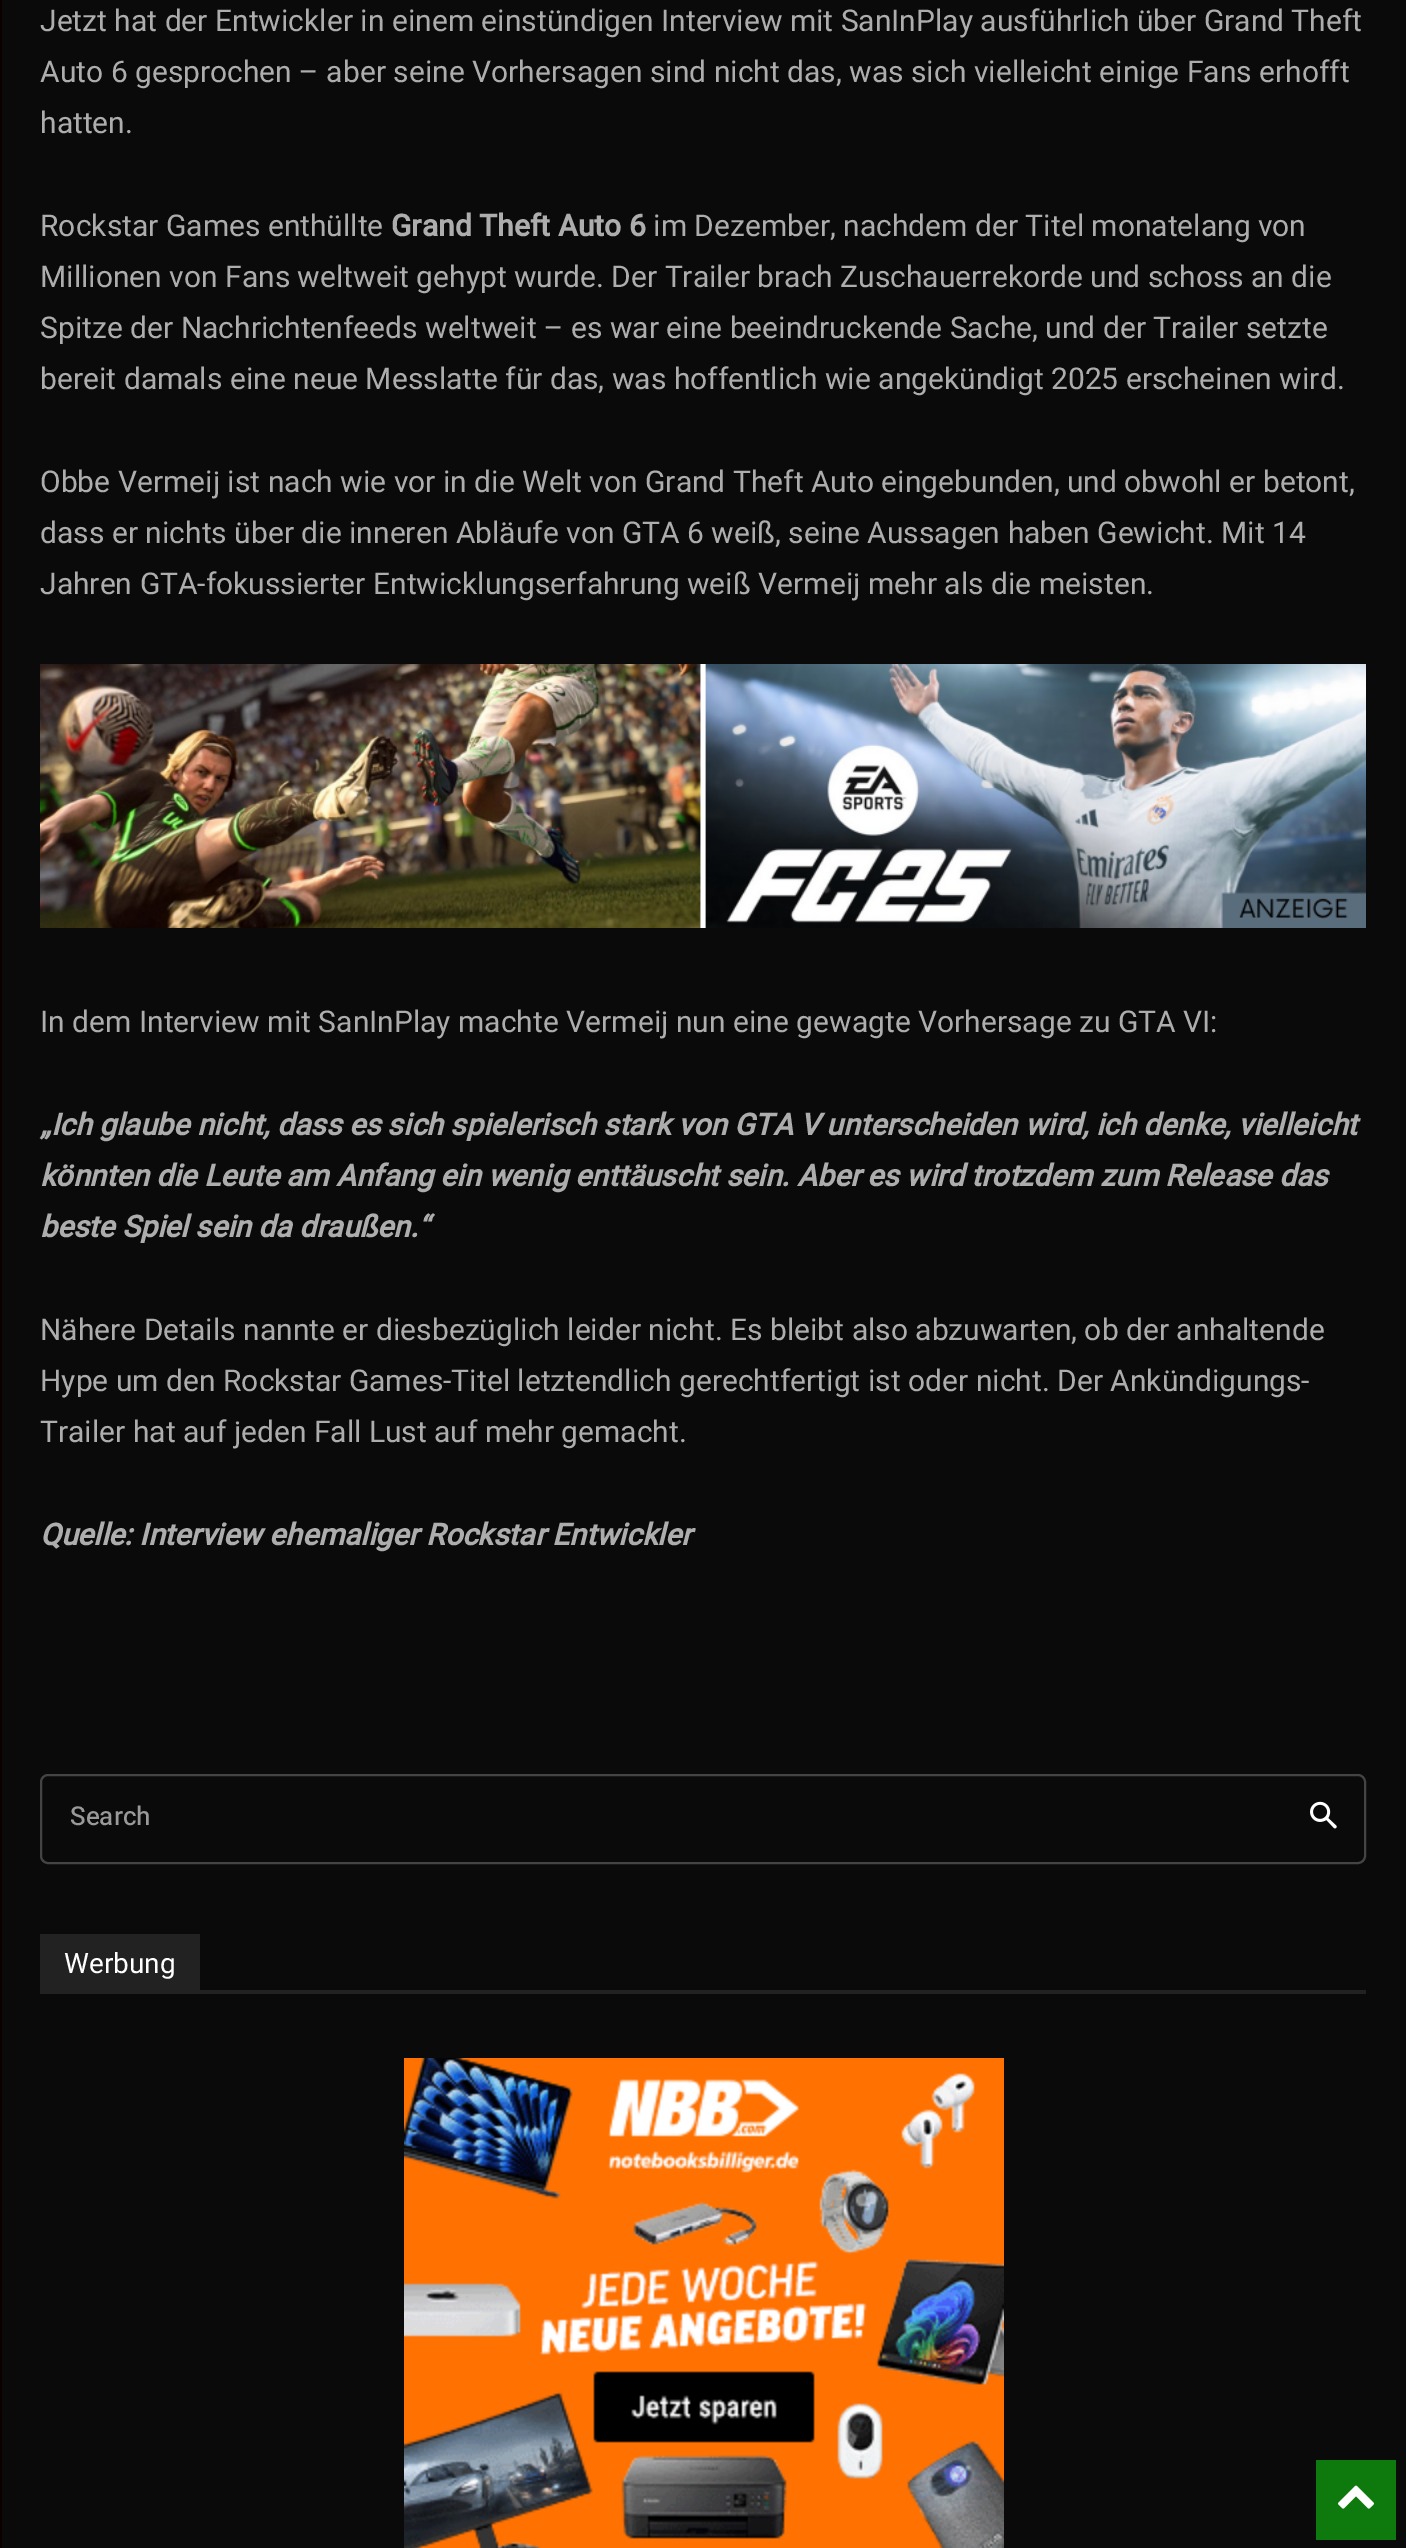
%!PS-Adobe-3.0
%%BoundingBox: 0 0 1406 2548
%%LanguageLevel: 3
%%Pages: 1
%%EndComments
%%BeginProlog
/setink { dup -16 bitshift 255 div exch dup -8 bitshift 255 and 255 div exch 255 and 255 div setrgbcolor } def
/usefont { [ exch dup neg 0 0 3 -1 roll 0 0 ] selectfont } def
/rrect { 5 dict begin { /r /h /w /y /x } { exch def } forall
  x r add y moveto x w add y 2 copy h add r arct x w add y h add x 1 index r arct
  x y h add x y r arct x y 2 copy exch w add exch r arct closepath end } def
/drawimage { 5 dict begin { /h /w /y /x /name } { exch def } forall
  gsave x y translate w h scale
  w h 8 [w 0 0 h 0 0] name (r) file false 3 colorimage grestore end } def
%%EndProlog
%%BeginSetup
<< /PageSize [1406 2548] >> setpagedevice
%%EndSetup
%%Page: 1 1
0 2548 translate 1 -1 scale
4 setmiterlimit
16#0A0000 setink
0 0 1406 2548 rectfill
16#0A0A0A setink
2 0 1404 2548 rectfill
/Heebo-Regular 30 usefont
16#ADADAD setink
[
    [(Jetzt hat der Entwickler in einem einstündigen Interview mit SanInPlay ausführlich über Grand Theft) 40 31]
    [(Auto 6 gesprochen – aber seine Vorhersagen sind nicht das, was sich vielleicht einige Fans erhofft) 40 82]
    [(hatten.) 40 133]
    [(Rockstar Games enthüllte) 40 236]
] { aload pop moveto show } forall
/Heebo-Bold 30 usefont
391 236 moveto (Grand Theft Auto 6) show
/Heebo-Regular 30 usefont
[
    [(im Dezember, nachdem der Titel monatelang von) 653 236]
    [(Millionen von Fans weltweit gehypt wurde. Der Trailer brach Zuschauerrekorde und schoss an die) 40 287]
    [(Spitze der Nachrichtenfeeds weltweit – es war eine beeindruckende Sache, und der Trailer setzte) 40 338]
    [(bereit damals eine neue Messlatte für das, was hoffentlich wie angekündigt 2025 erscheinen wird.) 40 389]
    [(Obbe Vermeij ist nach wie vor in die Welt von Grand Theft Auto eingebunden, und obwohl er betont,) 40 492]
    [(dass er nichts über die inneren Abläufe von GTA 6 weiß, seine Aussagen haben Gewicht. Mit 14) 40 543]
    [(Jahren GTA-fokussierter Entwicklungserfahrung weiß Vermeij mehr als die meisten.) 40 594]
] { aload pop moveto show } forall
(img1.raw) 40 664 1326 264 drawimage
40 1032 moveto (In dem Interview mit SanInPlay machte Vermeij nun eine gewagte Vorhersage zu GTA VI:) show
/Heebo-BoldItalic 30 usefont
[
    [(„Ich glaube nicht, dass es sich spielerisch stark von GTA V unterscheiden wird, ich denke, vielleicht) 40 1135]
    [(könnten die Leute am Anfang ein wenig enttäuscht sein. Aber es wird trotzdem zum Release das) 40 1186]
    [(beste Spiel sein da draußen.“) 40 1237]
] { aload pop moveto show } forall
/Heebo-Regular 30 usefont
[
    [(Nähere Details nannte er diesbezüglich leider nicht. Es bleibt also abzuwarten, ob der anhaltende) 40 1340]
    [(Hype um den Rockstar Games-Titel letztendlich gerechtfertigt ist oder nicht. Der Ankündigungs-) 40 1391]
    [(Trailer hat auf jeden Fall Lust auf mehr gemacht.) 40 1442]
] { aload pop moveto show } forall
/Heebo-BoldItalic 30 usefont
40 1545 moveto (Quelle: Interview ehemaliger Rockstar Entwickler) show
16#444444 setink
2 setlinewidth
41 1775 1324 88 7 rrect stroke
/Heebo-Medium 26 usefont
16#999999 setink
70 1825 moveto (Search) show
(img2.raw) 1310 1801 27 28 drawimage
16#222222 setink
40 1990 1326 4 rectfill
40 1934 160 56 rectfill
/Roboto-Regular 28 usefont
16#FFFFFF setink
64 1973 moveto (Werbung) show
(img3.raw) 404 2058 600 490 drawimage
16#0E7A0D setink
1316 2460 80 80 rectfill
(img4.raw) 1338 2485 36 24 drawimage
showpage
%%EOF
